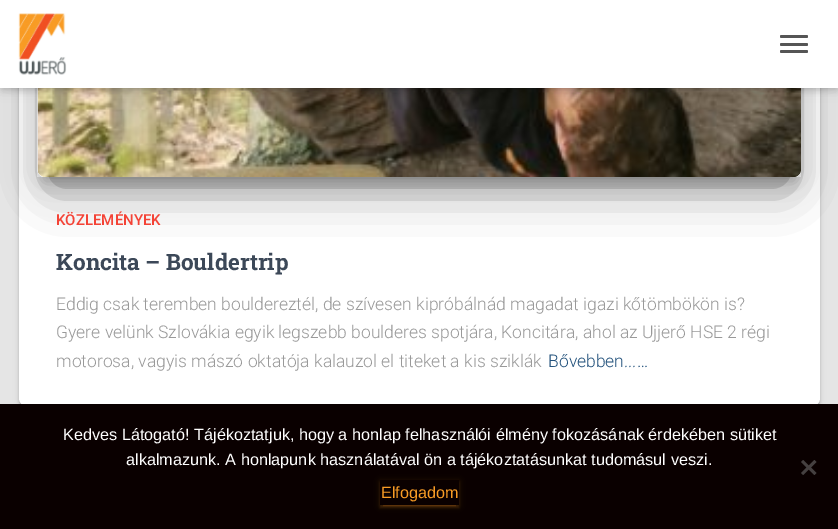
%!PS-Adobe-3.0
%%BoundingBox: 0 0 838 529
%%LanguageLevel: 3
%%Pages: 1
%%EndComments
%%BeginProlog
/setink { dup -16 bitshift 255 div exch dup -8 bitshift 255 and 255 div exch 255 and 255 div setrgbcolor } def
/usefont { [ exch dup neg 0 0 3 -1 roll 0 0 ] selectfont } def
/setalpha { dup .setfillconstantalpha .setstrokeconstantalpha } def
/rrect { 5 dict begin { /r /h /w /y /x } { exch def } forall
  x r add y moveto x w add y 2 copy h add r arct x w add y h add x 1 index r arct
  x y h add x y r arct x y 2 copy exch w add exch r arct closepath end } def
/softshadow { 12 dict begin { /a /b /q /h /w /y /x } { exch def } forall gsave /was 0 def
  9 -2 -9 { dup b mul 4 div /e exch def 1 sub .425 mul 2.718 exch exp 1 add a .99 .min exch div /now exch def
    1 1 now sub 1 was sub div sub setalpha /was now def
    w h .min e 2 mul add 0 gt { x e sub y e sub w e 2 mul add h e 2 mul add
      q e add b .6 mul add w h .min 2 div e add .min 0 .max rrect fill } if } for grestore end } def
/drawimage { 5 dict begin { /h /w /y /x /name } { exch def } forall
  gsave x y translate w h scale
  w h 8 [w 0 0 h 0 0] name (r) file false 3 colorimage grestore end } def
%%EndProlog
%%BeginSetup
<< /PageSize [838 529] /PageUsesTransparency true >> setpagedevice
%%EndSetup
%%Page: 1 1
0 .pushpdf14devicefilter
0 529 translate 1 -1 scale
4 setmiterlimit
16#E5E5E5 setink
0 0 838 529 rectfill
16#000000 setink
19 -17 801 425 8 3 0.12 softshadow
19 -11 801 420 8 1 0.14 softshadow
16#FFFFFF setink
19 -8 801 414 8 rrect fill
16#000000 setink
44 -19 751 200 1 6 0.2 softshadow
38 -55 763 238 8 15.5 0.12 softshadow
53 -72 733 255 0 24 0.56 softshadow
(img2.raw) 37 88 764 89 drawimage
3 8 833 82 0 3 0.1 softshadow
0 1 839 88 0 6 0.12 softshadow
8 9 823 72 0 6 0.42 softshadow
16#FFFFFF setink
0 0 838 88 rectfill
(img1.raw) 18 13 49 62 drawimage
16#555555 setink
780 35 28 3 1.5 rrect fill
780 43 28 3 1.5 rrect fill
780 50 28 3 1.5 rrect fill
/Roboto-Medium 15 usefont
16#F44336 setink
56 225 moveto (KÖZLEMÉNYEK) show
/RobotoSlab-Bold 22.5 usefont
16#3C4858 setink
56 270 moveto (Koncita – Bouldertrip) show
/Roboto-Light 17.5 usefont
16#999999 setink
[
    [(Eddig csak teremben bouldereztél, de szívesen kipróbálnád magadat igazi kőtömbökön is?) 56 310]
    [(Gyere velünk Szlovákia egyik legszebb boulderes spotjára, Koncitára, ahol az Ujjerő HSE 2 régi) 56 338]
    [(motorosa, vagyis mászó oktatója kalauzol el titeket a kis sziklák) 56 367]
] { aload pop moveto show } forall
16#23527C setink
548 367 moveto (Bővebben...…) show
16#0A0000 setink
0 404 838 125 rectfill
/LiberationSans-Regular 16.25 usefont
16#FFFFFF setink
63 440 moveto (Kedves Látogató! Tájékoztatjuk, hogy a honlap felhasználói élmény fokozásának érdekében sütiket) show
126 465 moveto (alkalmazunk. A honlapunk használatával ön a tájékoztatásunkat tudomásul veszi.) show
16#454040 setink
814.5 460 moveto 816.5 462 lineto 803 475 lineto 801 473 lineto closepath fill
801 462 moveto 803 460 lineto 816.5 473 lineto 814.5 475 lineto closepath fill
gsave
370 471 moveto 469 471 lineto 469 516 lineto 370 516 lineto closepath 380 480 moveto 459 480 lineto 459 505 lineto 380 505 lineto closepath eoclip newpath
16#F99C25 setink
380 481 79 25 0 3 0.12 softshadow
grestore
gsave
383 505 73 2 rectclip
16#F99C25 setink
383 486 73 20 0 0.5 0.2 softshadow
grestore
gsave
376 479 moveto 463 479 lineto 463 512 lineto 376 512 lineto closepath 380 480 moveto 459 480 lineto 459 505 lineto 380 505 lineto closepath eoclip newpath
16#F99C25 setink
380 483 79 25 0 1 0.14 softshadow
grestore
16#F99C25 setink
381 498 moveto (Elfogadom) show
.poppdf14devicefilter showpage
%%EOF
